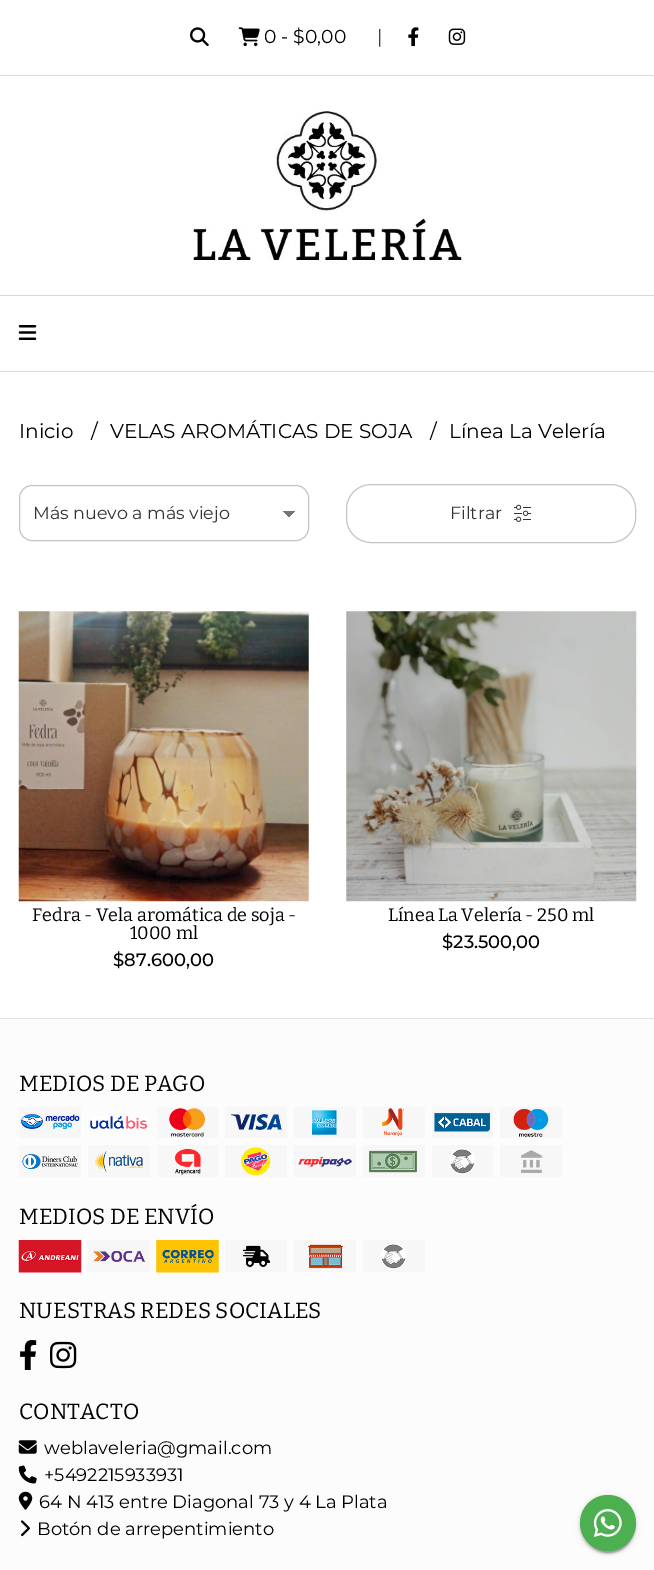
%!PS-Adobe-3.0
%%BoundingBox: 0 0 654 1570
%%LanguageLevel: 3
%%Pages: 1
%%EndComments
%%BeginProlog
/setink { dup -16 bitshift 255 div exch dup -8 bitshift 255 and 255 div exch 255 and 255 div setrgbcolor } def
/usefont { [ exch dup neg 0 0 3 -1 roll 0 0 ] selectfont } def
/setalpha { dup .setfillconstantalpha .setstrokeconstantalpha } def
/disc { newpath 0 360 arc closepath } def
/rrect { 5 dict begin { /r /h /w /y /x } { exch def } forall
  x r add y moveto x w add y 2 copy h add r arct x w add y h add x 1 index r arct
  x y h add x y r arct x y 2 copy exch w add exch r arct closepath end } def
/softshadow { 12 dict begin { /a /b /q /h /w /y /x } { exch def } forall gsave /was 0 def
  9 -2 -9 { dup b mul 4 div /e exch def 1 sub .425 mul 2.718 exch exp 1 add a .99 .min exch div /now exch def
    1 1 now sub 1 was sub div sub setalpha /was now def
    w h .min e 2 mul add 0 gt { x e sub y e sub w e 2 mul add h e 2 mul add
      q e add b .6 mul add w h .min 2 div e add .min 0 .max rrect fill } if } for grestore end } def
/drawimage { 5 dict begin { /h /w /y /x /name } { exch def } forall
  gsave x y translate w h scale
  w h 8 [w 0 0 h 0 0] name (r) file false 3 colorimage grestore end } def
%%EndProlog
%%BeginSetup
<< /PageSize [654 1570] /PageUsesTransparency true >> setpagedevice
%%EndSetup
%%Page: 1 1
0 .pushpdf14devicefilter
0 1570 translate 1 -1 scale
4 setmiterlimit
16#FFFFFF setink
0 0 654 1570 rectfill
16#D9D9D9 setink
0 75 654 1 rectfill
(img1.raw) 190 27 19 20 drawimage
(img2.raw) 238 27 22 20 drawimage
/Montserrat-Regular 18.75 usefont
16#000000 setink
264 43 moveto (0 - $0,00) show
377 43 moveto (|) show
(img3.raw) 408 27 11 20 drawimage
(img4.raw) 448 28 18 17 drawimage
(img5.raw) 193 111 269 149 drawimage
16#D9D9D9 setink
0 295 654 1 rectfill
0 371 654 1 rectfill
(img6.raw) 18 325 19 15 drawimage
/Montserrat-Regular 20 usefont
16#000000 setink
[
    [(Inicio) 19 438]
    [(/) 91 438]
    [(VELAS AROMÁTICAS DE SOJA) 110 438]
    [(/) 430 438]
    [(Línea La Velería) 449 438]
] { aload pop moveto show } forall
gsave 289 511 moveto 295 511 lineto 295 518 lineto 289 518 lineto closepath clip newpath
<< /ShadingType 2 /ColorSpace /DeviceRGB /Coords [289 511 295 518] /Extend [true true] /Function << /FunctionType 3 /Domain [0 1] /Functions [<< /FunctionType 2 /Domain [0 1] /C0 [0.459 0.459 0.459] /C1 [0.459 0.459 0.459] /N 1 >> << /FunctionType 2 /Domain [0 1] /C0 [1 1 1] /C1 [1 1 1] /N 1 >>] /Bounds [0.5] /Encode [0 1 0 1] >> >> shfill grestore
gsave 283 511 moveto 289 511 lineto 289 518 lineto 283 518 lineto closepath clip newpath
<< /ShadingType 2 /ColorSpace /DeviceRGB /Coords [283 518 289 511] /Extend [true true] /Function << /FunctionType 3 /Domain [0 1] /Functions [<< /FunctionType 2 /Domain [0 1] /C0 [1 1 1] /C1 [1 1 1] /N 1 >> << /FunctionType 2 /Domain [0 1] /C0 [0.459 0.459 0.459] /C1 [0.459 0.459 0.459] /N 1 >>] /Bounds [0.5] /Encode [0 1 0 1] >> >> shfill grestore
16#C4C4C4 setink
19.5 485.5 289 55 12.5 rrect stroke
/Montserrat-Regular 17.5 usefont
16#333333 setink
33 519 moveto (Más nuevo a más viejo) show
16#C4C4C4 setink
346.5 484.5 289 58 24.5 rrect stroke
16#333333 setink
450 519 moveto (Filtrar) show
(img7.raw) 514 504 17 18 drawimage
(img8.raw) 18 611 291 291 drawimage
/Bitter-Regular 18 usefont
16#000000 setink
32 921 moveto (Fedra - Vela aromática de soja -) show
130 939 moveto (1000 ml) show
/Montserrat-Medium 18 usefont
113 966 moveto ($87.600,00) show
(img9.raw) 346 611 291 291 drawimage
/Bitter-Regular 18 usefont
388 921 moveto (Línea La Velería - 250 ml) show
/Montserrat-Medium 18 usefont
442 948 moveto ($23.500,00) show
16#FCFCFC setink
0 1019 654 551 rectfill
16#E3E3E3 setink
0 1018 654 1 rectfill
/Bitter-Regular 22 usefont
16#000000 setink
19 1091 moveto (MEDIOS DE PAGO) show
(img10.raw) 19 1107 62 31 drawimage
(img11.raw) 90 1116 58 13 drawimage
(img12.raw) 157 1107 61 31 drawimage
(img13.raw) 225 1107 62 31 drawimage
(img14.raw) 294 1107 62 31 drawimage
(img15.raw) 363 1107 62 31 drawimage
(img16.raw) 432 1107 61 31 drawimage
(img17.raw) 500 1107 62 31 drawimage
(img18.raw) 19 1145 62 32 drawimage
(img19.raw) 88 1145 62 32 drawimage
(img20.raw) 157 1145 61 32 drawimage
(img21.raw) 225 1145 62 32 drawimage
(img22.raw) 294 1145 62 32 drawimage
(img23.raw) 363 1145 62 32 drawimage
(img24.raw) 432 1145 61 32 drawimage
(img25.raw) 500 1145 62 32 drawimage
19 1224 moveto (MEDIOS DE ENVÍO) show
(img26.raw) 18 1240 64 33 drawimage
(img27.raw) 88 1240 62 32 drawimage
(img28.raw) 156 1240 63 33 drawimage
(img29.raw) 225 1240 62 32 drawimage
(img30.raw) 294 1240 62 32 drawimage
(img31.raw) 363 1240 62 32 drawimage
19 1318 moveto (NUESTRAS REDES SOCIALES) show
(img32.raw) 20 1340 17 30 drawimage
(img33.raw) 50 1341 27 28 drawimage
19 1419 moveto (CONTACTO) show
(img34.raw) 18 1440 19 14 drawimage
/Montserrat-Regular 18 usefont
44 1454 moveto (weblaveleria@gmail.com) show
(img35.raw) 18 1465 19 19 drawimage
44 1481 moveto (+5492215933931) show
(img36.raw) 18 1491 15 19 drawimage
39 1508 moveto (64 N 413 entre Diagonal 73 y 4 La Plata) show
(img37.raw) 21 1520 9 17 drawimage
37 1535 moveto (Botón de arrepentimiento) show
583 1501 51 52 25.5 0.5 0.2 softshadow
580 1496 56 57 28 3 0.12 softshadow
580 1498 56 56 28 1 0.14 softshadow
16#4CAF50 setink
608 1523 28 disc fill
(img38.raw) 593 1509 29 28 drawimage
.poppdf14devicefilter showpage
%%EOF
